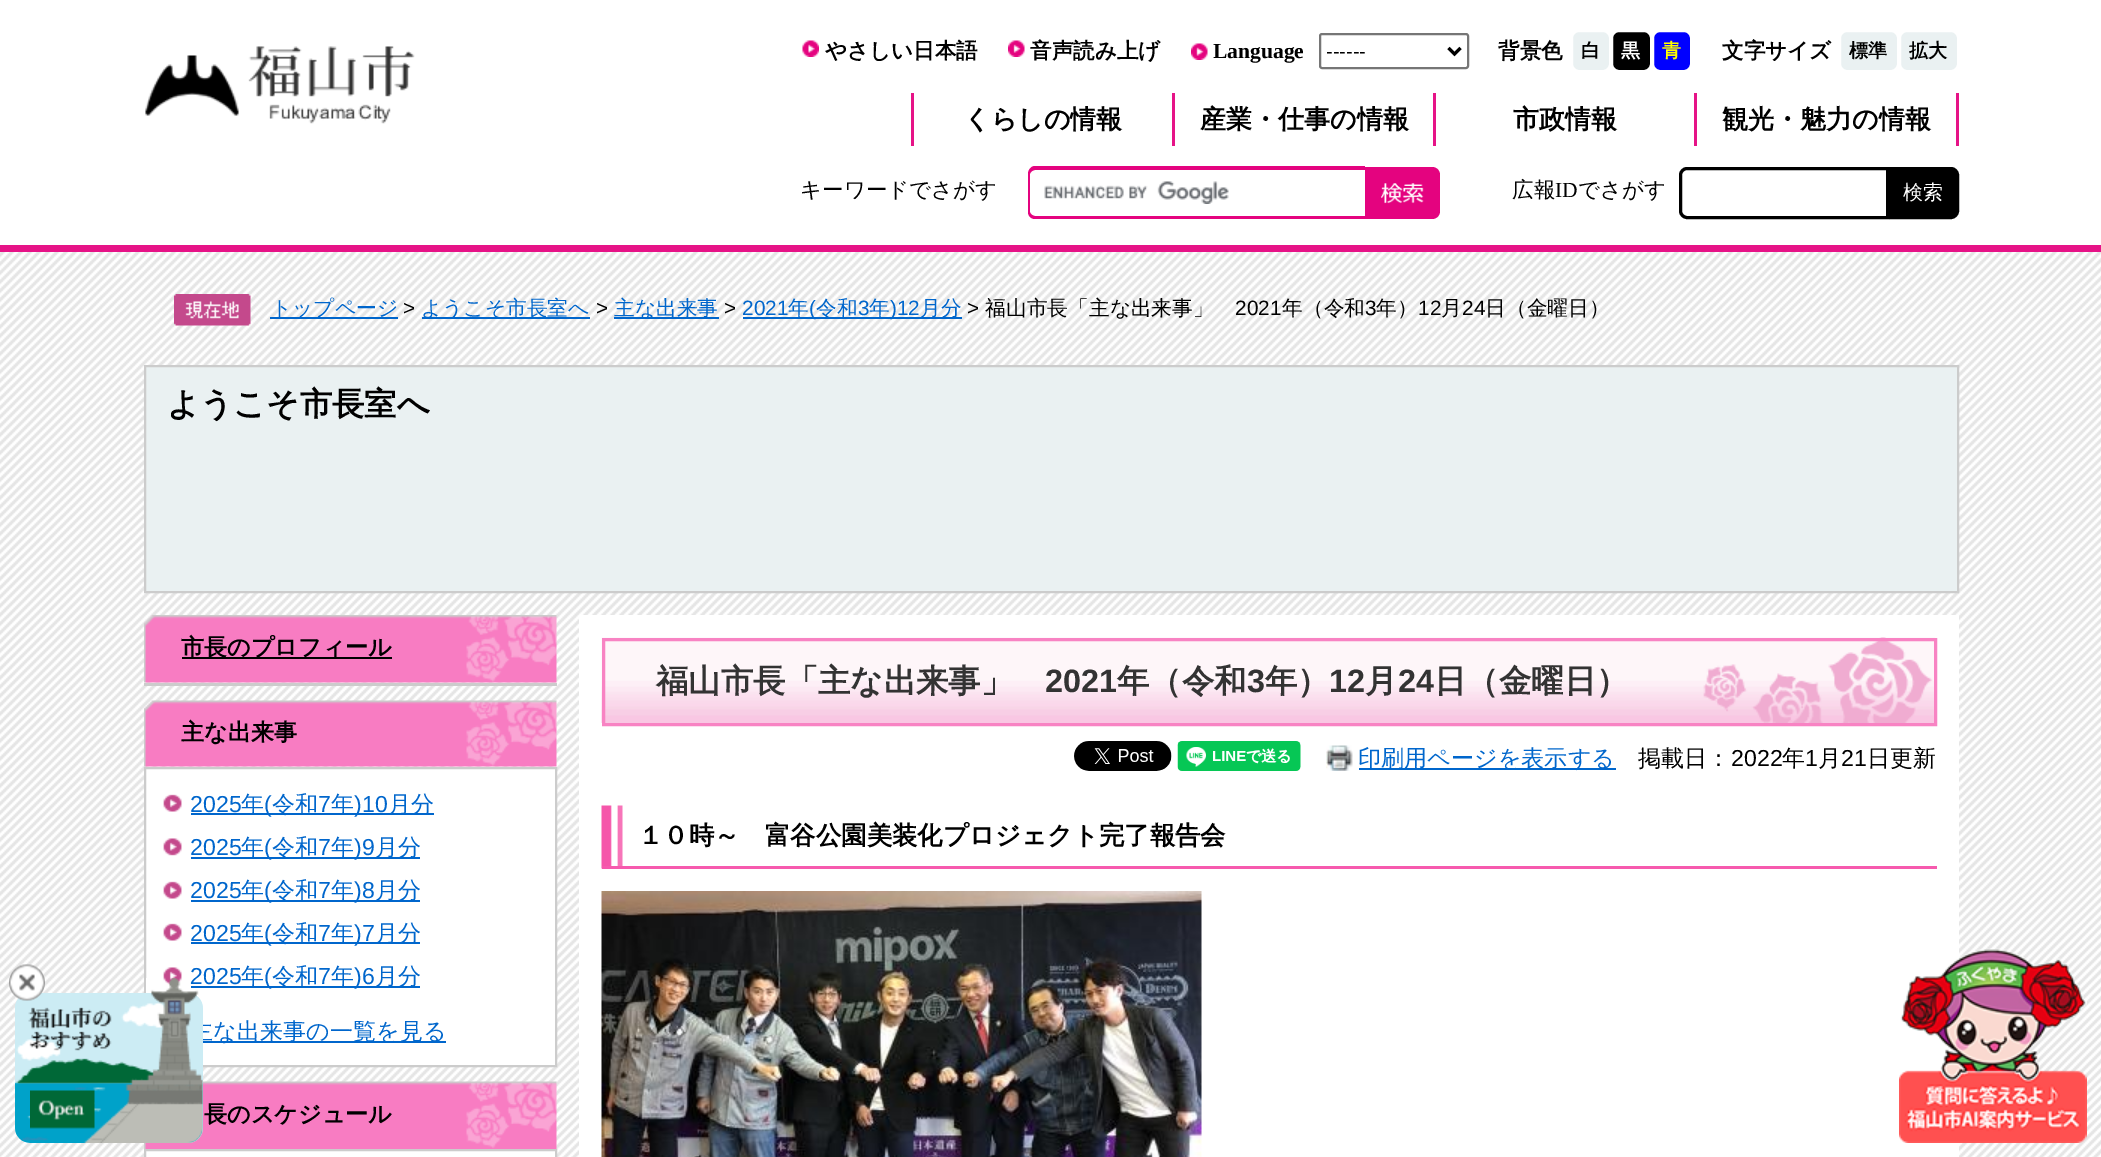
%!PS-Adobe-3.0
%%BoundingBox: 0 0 2101 1157
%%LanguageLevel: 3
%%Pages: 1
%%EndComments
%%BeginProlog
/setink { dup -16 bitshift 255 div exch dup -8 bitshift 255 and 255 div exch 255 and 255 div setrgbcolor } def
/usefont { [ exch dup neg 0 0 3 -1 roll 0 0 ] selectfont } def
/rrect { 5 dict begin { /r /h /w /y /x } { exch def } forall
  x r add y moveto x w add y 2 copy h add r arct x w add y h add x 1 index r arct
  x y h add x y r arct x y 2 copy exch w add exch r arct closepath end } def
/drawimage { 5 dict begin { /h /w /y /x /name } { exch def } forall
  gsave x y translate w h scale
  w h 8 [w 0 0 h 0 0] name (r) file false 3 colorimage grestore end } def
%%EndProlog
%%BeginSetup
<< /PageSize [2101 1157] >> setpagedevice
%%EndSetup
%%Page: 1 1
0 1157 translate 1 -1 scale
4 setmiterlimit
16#FFFFFF setink
0 0 2101 1157 rectfill
(img1.raw) 0 252 2101 905 drawimage
16#E61387 setink
0 245 2101 7 rectfill
(img2.raw) 145 46 270 78 drawimage
(img3.raw) 802 40 17 17 drawimage
/WenQuanYiZenHei-Bold 21.5 usefont
16#000000 setink
825 58 moveto (やさしい日本語) show
(img4.raw) 1008 40 17 17 drawimage
1030 58 moveto (音声読み上げ) show
(img5.raw) 1191 43 17 17 drawimage
/LiberationSerif-Bold 21.5 usefont
1213 58 moveto (Language) show
16#767676 setink
2 setlinewidth
1320 34 148 34 2 rrect stroke
16#000000 setink
3 setlinewidth
1448.5 48 moveto 1454.5 54 lineto 1460.5 48 lineto stroke
/LiberationSans-Regular 20 usefont
1326 58 moveto (------) show
/WenQuanYiZenHei-Bold 21.5 usefont
1498 58 moveto (背景色) show
16#EAF1F2 setink
1572 31 38 40 7 rrect gsave fill grestore
16#FFFFFF setink
2 setlinewidth
stroke
/WenQuanYiZenHei-Bold 19 usefont
16#000000 setink
1581 57 moveto (白) show
1612 31 39 40 7 rrect gsave fill grestore
16#FFFFFF setink
stroke
1621 57 moveto (黒) show
16#0000FF setink
1653 31 38 40 7 rrect gsave fill grestore
16#FFFFFF setink
stroke
16#FFFF00 setink
1662 57 moveto (青) show
/WenQuanYiZenHei-Bold 21.5 usefont
16#000000 setink
1722 58 moveto (文字サイズ) show
16#EAF1F2 setink
1840 31 58 40 7 rrect gsave fill grestore
16#FFFFFF setink
stroke
/WenQuanYiZenHei-Bold 19 usefont
16#000000 setink
1849 57 moveto (標準) show
16#EAF1F2 setink
1900 31 58 40 7 rrect gsave fill grestore
16#FFFFFF setink
stroke
16#000000 setink
1909 57 moveto (拡大) show
16#E61387 setink
1172 93 3 53 rectfill
911 93 3 53 rectfill
/WenQuanYiZenHei-Bold 26 usefont
16#000000 setink
964 128 moveto (くらしの情報) show
16#E61387 setink
1433 93 3 53 rectfill
16#000000 setink
1200 128 moveto (産業・仕事の情報) show
16#E61387 setink
1694 93 3 53 rectfill
16#000000 setink
1513 128 moveto (市政情報) show
16#E61387 setink
1956 93 3 53 rectfill
16#000000 setink
1722 128 moveto (観光・魅力の情報) show
/WenQuanYiZenHei-Medium 21.5 usefont
800 197 moveto (キーワードでさがす) show
(img6.raw) 1044 181 185 23 drawimage
16#E4037F setink
1035 166 moveto 1365 166 lineto 1365 219 lineto 1035 219 lineto 1031 219 1028 216 1028 212 curveto 1028 174 lineto 1028 170 1031 166 1035 166 curveto closepath 1035 170 moveto 1365 170 lineto 1365 216 lineto 1035 216 lineto 1033 216 1030 214 1030 212 curveto 1030 174 lineto 1030 172 1033 170 1035 170 curveto closepath eofill
1365 167 moveto 1432 167 lineto 1436.5 167 1440 170.5 1440 175 curveto 1440 211 lineto 1440 215.5 1436.5 219 1432 219 curveto 1365 219 lineto closepath fill
(img7.raw) 1381 183 43 21 drawimage
16#000000 setink
1512 197 moveto (広報) show
/LiberationSerif-Regular 21.5 usefont
1555 197 moveto (ID) show
/WenQuanYiZenHei-Medium 21.5 usefont
1578 197 moveto (でさがす) show
3 setlinewidth
1687 168.5 moveto 1887.5 168.5 lineto 1887.5 217.5 lineto 1687 217.5 lineto 1683.5 217.5 1680.5 214.5 1680.5 211 curveto 1680.5 175 lineto 1680.5 171.5 1683.5 168.5 1687 168.5 curveto closepath stroke
1890.5 168.5 moveto 1951 168.5 lineto 1954.5 168.5 1957.5 171.5 1957.5 175 curveto 1957.5 211 lineto 1957.5 214.5 1954.5 217.5 1951 217.5 curveto 1890.5 217.5 lineto closepath gsave fill grestore
stroke
/WenQuanYiZenHei-Medium 20 usefont
16#FFFFFF setink
1903 199 moveto (検索) show
145 768 moveto 556 768 lineto 556 1066 lineto 145 1066 lineto closepath gsave fill grestore
16#CCCCCC setink
2 setlinewidth
stroke
16#0066CC setink
203 1041 243 2 rectfill
/WenQuanYiZenHei-Medium 23.1 usefont
190 1039 moveto (主な出来事の一覧を見る) show
(img18.raw) 144 1081 413 68 drawimage
16#CBECF4 setink
15 993 188 150 15 rrect fill
(img8.raw) 15 993 188 150 drawimage
(img17.raw) 163 967 19 18 drawimage
/LiberationSans-Regular 23.1 usefont
16#0066CC setink
190 984 moveto (2025) show
191 986 229 2 rectfill
(img10.raw) 16 978 187 165 drawimage
(img9.raw) 9 964 36 37 drawimage
(img11.raw) 16 1007 96 134 drawimage
(img12.raw) 30 1090 65 39 drawimage
(img13.raw) 174 294 77 32 drawimage
270 317 128 2 rectfill
/WenQuanYiZenHei-Medium 20.75 usefont
271 315 moveto (トップページ) show
/LiberationSans-Regular 20.75 usefont
16#000000 setink
403 315 moveto (>) show
16#0066CC setink
422 317 168 2 rectfill
/WenQuanYiZenHei-Medium 20.75 usefont
421 315 moveto (ようこそ市長室へ) show
/LiberationSans-Regular 20.75 usefont
16#000000 setink
596 315 moveto (>) show
16#0066CC setink
614 317 105 2 rectfill
/WenQuanYiZenHei-Medium 20.75 usefont
614 315 moveto (主な出来事) show
/LiberationSans-Regular 20.75 usefont
16#000000 setink
724 315 moveto (>) show
16#0066CC setink
742 315 moveto (2021) show
743 317 219 2 rectfill
/WenQuanYiZenHei-Medium 20.75 usefont
788 315 moveto (年) show
/LiberationSans-Regular 20.75 usefont
809 315 moveto (\() show
/WenQuanYiZenHei-Medium 20.75 usefont
816 315 moveto (令和) show
/LiberationSans-Regular 20.75 usefont
858 315 moveto (3) show
/WenQuanYiZenHei-Medium 20.75 usefont
869 315 moveto (年) show
/LiberationSans-Regular 20.75 usefont
890 315 moveto (\)12) show
/WenQuanYiZenHei-Medium 20.75 usefont
920 315 moveto (月分) show
/LiberationSans-Regular 20.75 usefont
16#000000 setink
967 315 moveto (>) show
/WenQuanYiZenHei-Medium 20.75 usefont
985 315 moveto (福山市長「主な出来事」) show
/LiberationSans-Regular 20.75 usefont
1235 315 moveto (2021) show
/WenQuanYiZenHei-Medium 20.75 usefont
1282 315 moveto (年（令和) show
/LiberationSans-Regular 20.75 usefont
1365 315 moveto (3) show
/WenQuanYiZenHei-Medium 20.75 usefont
1376 315 moveto (年）) show
/LiberationSans-Regular 20.75 usefont
1418 315 moveto (12) show
/WenQuanYiZenHei-Medium 20.75 usefont
1441 315 moveto (月) show
/LiberationSans-Regular 20.75 usefont
1462 315 moveto (24) show
/WenQuanYiZenHei-Medium 20.75 usefont
1485 315 moveto (日（金曜日）) show
16#EAF1F2 setink
145 366 moveto 1958 366 lineto 1958 592 lineto 145 592 lineto closepath gsave fill grestore
16#CCCCCC setink
stroke
/WenQuanYiZenHei-Bold 32.4 usefont
16#000000 setink
167 415 moveto (ようこそ市長室へ) show
(img14.raw) 144 615 413 68 drawimage
182 657 210 2 rectfill
/WenQuanYiZenHei-Bold 23.1 usefont
181 655 moveto (市長のプロフィール) show
16#CCCCCC setink
144 683 413 3 rectfill
(img15.raw) 144 700 413 67 drawimage
16#000000 setink
181 740 moveto (主な出来事) show
(img16.raw) 163 794 19 18 drawimage
/LiberationSans-Regular 23.1 usefont
16#0066CC setink
190 812 moveto (2025) show
191 813 243 2 rectfill
/WenQuanYiZenHei-Medium 23.1 usefont
241 812 moveto (年) show
/LiberationSans-Regular 23.1 usefont
264 812 moveto (\() show
/WenQuanYiZenHei-Medium 23.1 usefont
272 812 moveto (令和) show
/LiberationSans-Regular 23.1 usefont
318 812 moveto (7) show
/WenQuanYiZenHei-Medium 23.1 usefont
331 812 moveto (年) show
/LiberationSans-Regular 23.1 usefont
354 812 moveto (\)10) show
/WenQuanYiZenHei-Medium 23.1 usefont
388 812 moveto (月分) show
(img17.raw) 163 838 19 18 drawimage
/LiberationSans-Regular 23.1 usefont
190 855 moveto (2025) show
191 857 229 2 rectfill
/WenQuanYiZenHei-Medium 23.1 usefont
241 855 moveto (年) show
/LiberationSans-Regular 23.1 usefont
264 855 moveto (\() show
/WenQuanYiZenHei-Medium 23.1 usefont
272 855 moveto (令和) show
/LiberationSans-Regular 23.1 usefont
318 855 moveto (7) show
/WenQuanYiZenHei-Medium 23.1 usefont
331 855 moveto (年) show
/LiberationSans-Regular 23.1 usefont
354 855 moveto (\)9) show
/WenQuanYiZenHei-Medium 23.1 usefont
375 855 moveto (月分) show
(img16.raw) 163 881 19 18 drawimage
/LiberationSans-Regular 23.1 usefont
190 898 moveto (2025) show
191 900 229 2 rectfill
/WenQuanYiZenHei-Medium 23.1 usefont
241 898 moveto (年) show
/LiberationSans-Regular 23.1 usefont
264 898 moveto (\() show
/WenQuanYiZenHei-Medium 23.1 usefont
272 898 moveto (令和) show
/LiberationSans-Regular 23.1 usefont
318 898 moveto (7) show
/WenQuanYiZenHei-Medium 23.1 usefont
331 898 moveto (年) show
/LiberationSans-Regular 23.1 usefont
354 898 moveto (\)8) show
/WenQuanYiZenHei-Medium 23.1 usefont
375 898 moveto (月分) show
(img16.raw) 163 923 19 18 drawimage
/LiberationSans-Regular 23.1 usefont
190 941 moveto (2025) show
191 942 229 2 rectfill
/WenQuanYiZenHei-Medium 23.1 usefont
241 941 moveto (年) show
/LiberationSans-Regular 23.1 usefont
264 941 moveto (\() show
/WenQuanYiZenHei-Medium 23.1 usefont
272 941 moveto (令和) show
/LiberationSans-Regular 23.1 usefont
318 941 moveto (7) show
/WenQuanYiZenHei-Medium 23.1 usefont
331 941 moveto (年) show
/LiberationSans-Regular 23.1 usefont
354 941 moveto (\)7) show
/WenQuanYiZenHei-Medium 23.1 usefont
375 941 moveto (月分) show
241 984 moveto (年) show
/LiberationSans-Regular 23.1 usefont
264 984 moveto (\() show
/WenQuanYiZenHei-Medium 23.1 usefont
272 984 moveto (令和) show
/LiberationSans-Regular 23.1 usefont
318 984 moveto (7) show
/WenQuanYiZenHei-Medium 23.1 usefont
331 984 moveto (年) show
/LiberationSans-Regular 23.1 usefont
354 984 moveto (\)6) show
/WenQuanYiZenHei-Medium 23.1 usefont
375 984 moveto (月分) show
/WenQuanYiZenHei-Bold 23.1 usefont
16#000000 setink
204 1122 moveto (長のスケジュール) show
16#FFFFFF setink
145 1150 moveto 556 1150 lineto 556 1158 lineto 145 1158 lineto closepath gsave fill grestore
16#CCCCCC setink
stroke
16#FFFFFF setink
579 615 1380 542 rectfill
(img19.raw) 601 637 1334 86 drawimage
16#F883C3 setink
3 setlinewidth
603.5 639.5 1332 85 rectstroke
/WenQuanYiZenHei-Bold 32.4 usefont
16#333333 setink
656 692 moveto (福山市長「主な出来事」) show
/LiberationSans-Bold 32.4 usefont
1045 692 moveto (2021) show
/WenQuanYiZenHei-Bold 32.4 usefont
1117 692 moveto (年（令和) show
/LiberationSans-Bold 32.4 usefont
1247 692 moveto (3) show
/WenQuanYiZenHei-Bold 32.4 usefont
1265 692 moveto (年）) show
/LiberationSans-Bold 32.4 usefont
1329 692 moveto (12) show
/WenQuanYiZenHei-Bold 32.4 usefont
1365 692 moveto (月) show
/LiberationSans-Bold 32.4 usefont
1398 692 moveto (24) show
/WenQuanYiZenHei-Bold 32.4 usefont
1434 692 moveto (日（金曜日）) show
(img20.raw) 1074 741 98 30 drawimage
(img21.raw) 1177 741 124 30 drawimage
(img22.raw) 1326 745 27 26 drawimage
16#0066CC setink
1359 768 257 2 rectfill
/WenQuanYiZenHei-Medium 23.1 usefont
1358 766 moveto (印刷用ページを表示する) show
16#000000 setink
1638 766 moveto (掲載日：) show
/LiberationSans-Regular 23.1 usefont
1731 766 moveto (2022) show
/WenQuanYiZenHei-Medium 23.1 usefont
1782 766 moveto (年) show
/LiberationSans-Regular 23.1 usefont
1805 766 moveto (1) show
/WenQuanYiZenHei-Medium 23.1 usefont
1818 766 moveto (月) show
/LiberationSans-Regular 23.1 usefont
1841 766 moveto (21) show
/WenQuanYiZenHei-Medium 23.1 usefont
1867 766 moveto (日更新) show
(img23.raw) 601 805 22 64 drawimage
16#F65AAE setink
602 866 1335 3 rectfill
/WenQuanYiZenHei-Bold 25.4 usefont
16#000000 setink
638 844 moveto (１０時～　富谷公園美装化プロジェクト完了報告会) show
(img24.raw) 601 891 601 266 drawimage
(img25.raw) 1899 948 188 195 drawimage
showpage
%%EOF
